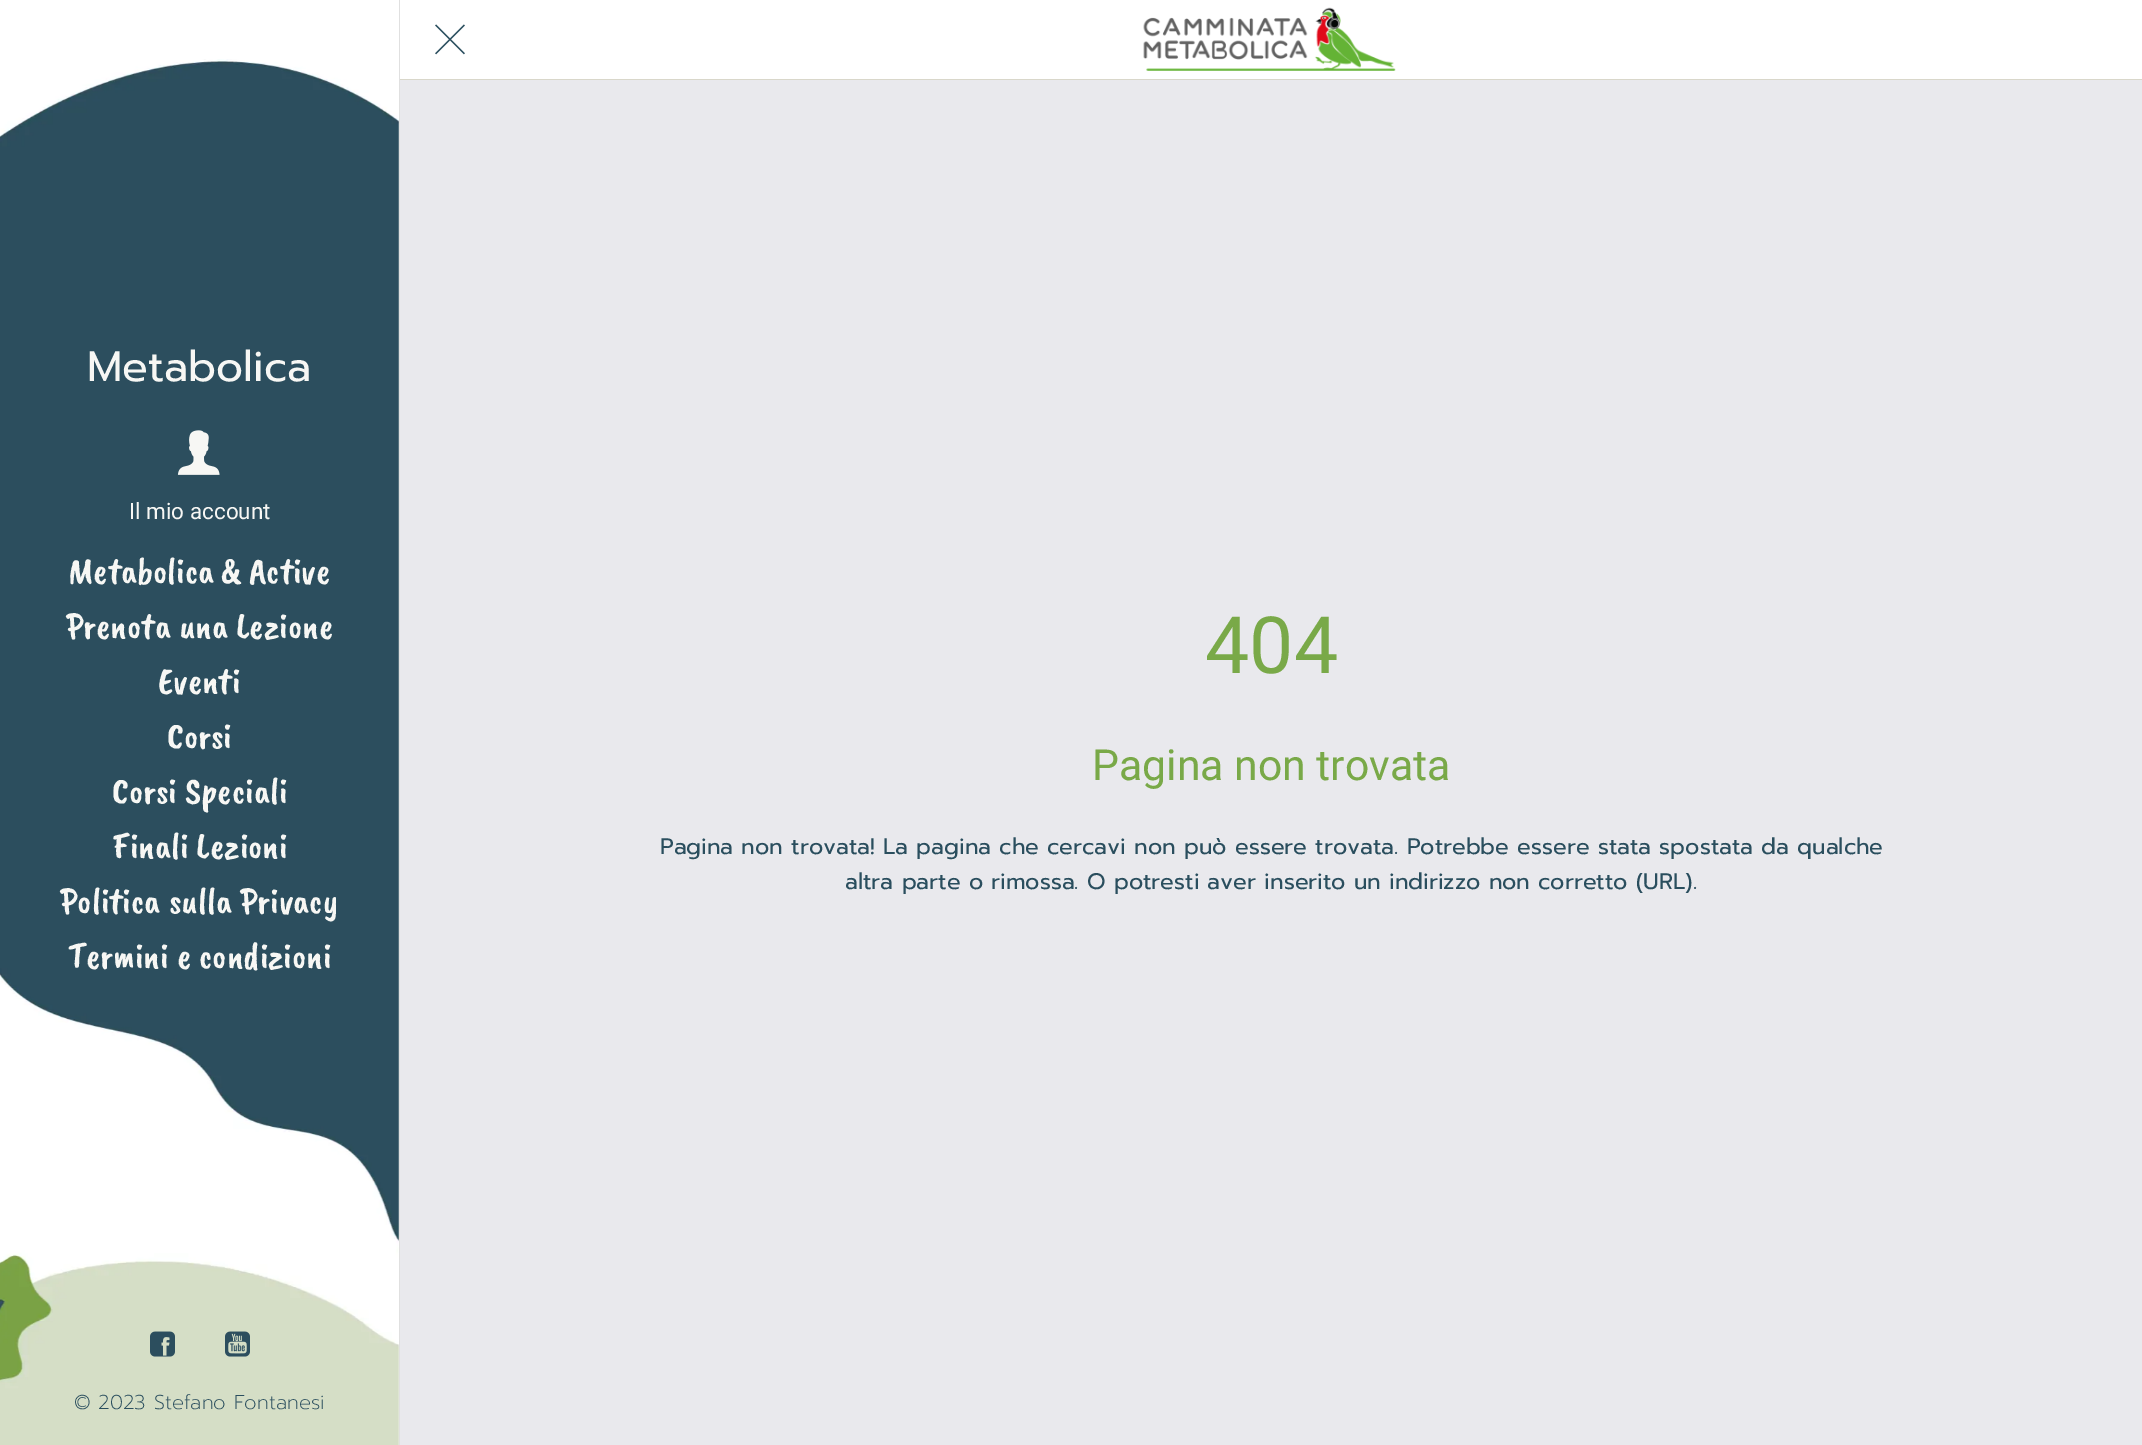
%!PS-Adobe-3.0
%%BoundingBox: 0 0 2142 1445
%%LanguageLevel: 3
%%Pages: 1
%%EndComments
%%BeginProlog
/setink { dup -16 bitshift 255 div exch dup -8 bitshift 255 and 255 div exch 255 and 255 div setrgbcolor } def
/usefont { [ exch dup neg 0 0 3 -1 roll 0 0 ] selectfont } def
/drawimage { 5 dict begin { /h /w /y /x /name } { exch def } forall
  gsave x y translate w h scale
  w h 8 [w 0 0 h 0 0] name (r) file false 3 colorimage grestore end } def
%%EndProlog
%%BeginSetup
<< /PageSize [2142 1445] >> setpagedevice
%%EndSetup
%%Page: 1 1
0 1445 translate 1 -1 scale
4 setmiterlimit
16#E9E9ED setink
0 0 2142 1445 rectfill
16#FFFFFF setink
0 0 399 1445 rectfill
16#E0E0E0 setink
399 0 1 1445 rectfill
(img1.raw) 0 59 399 1386 drawimage
/Prompt-Regular 42.5 usefont
16#F7F7F4 setink
87 381 moveto (Metabolica) show
(img2.raw) 177 430 43 45 drawimage
/Roboto-Regular 22.5 usefont
129 519 moveto (Il mio account) show
/CaveatBrush-Regular 37.5 usefont
[
    [(Metabolica & Active) 68 583]
    [(Prenota una Lezione) 66 638]
    [(Eventi) 158 693]
    [(Corsi) 167 748]
    [(Corsi Speciali) 112 803]
    [(Finali Lezioni) 112 858]
    [(Politica sulla Privacy) 60 913]
] { aload pop moveto show } forall
gsave
68 931 263 48 rectclip
68 968 moveto (Termini e condizioni) show
grestore
(img3.raw) 150 1331 25 26 drawimage
(img4.raw) 225 1331 25 26 drawimage
/Prompt-ExtraLight 20 usefont
16#2A4E5E setink
74 1409 moveto (© 2023 Stefano Fontanesi) show
16#FFFFFF setink
400 0 1742 79 rectfill
16#D9D7CA setink
400 79 1742 1 rectfill
(img5.raw) 435 24 30 31 drawimage
(img6.raw) 1143 7 253 64 drawimage
/Roboto-Regular 79 usefont
16#79A948 setink
1205 673 moveto (404) show
/Roboto-Regular 42.75 usefont
1092 780 moveto (Pagina non trovata) show
/Prompt-Regular 22.5 usefont
16#2A4E5E setink
660 854 moveto (Pagina non trovata! La pagina che cercavi non può essere trovata. Potrebbe essere stata spostata da qualche) show
845 889 moveto (altra parte o rimossa. O potresti aver inserito un indirizzo non corretto \(URL\).) show
showpage
%%EOF
